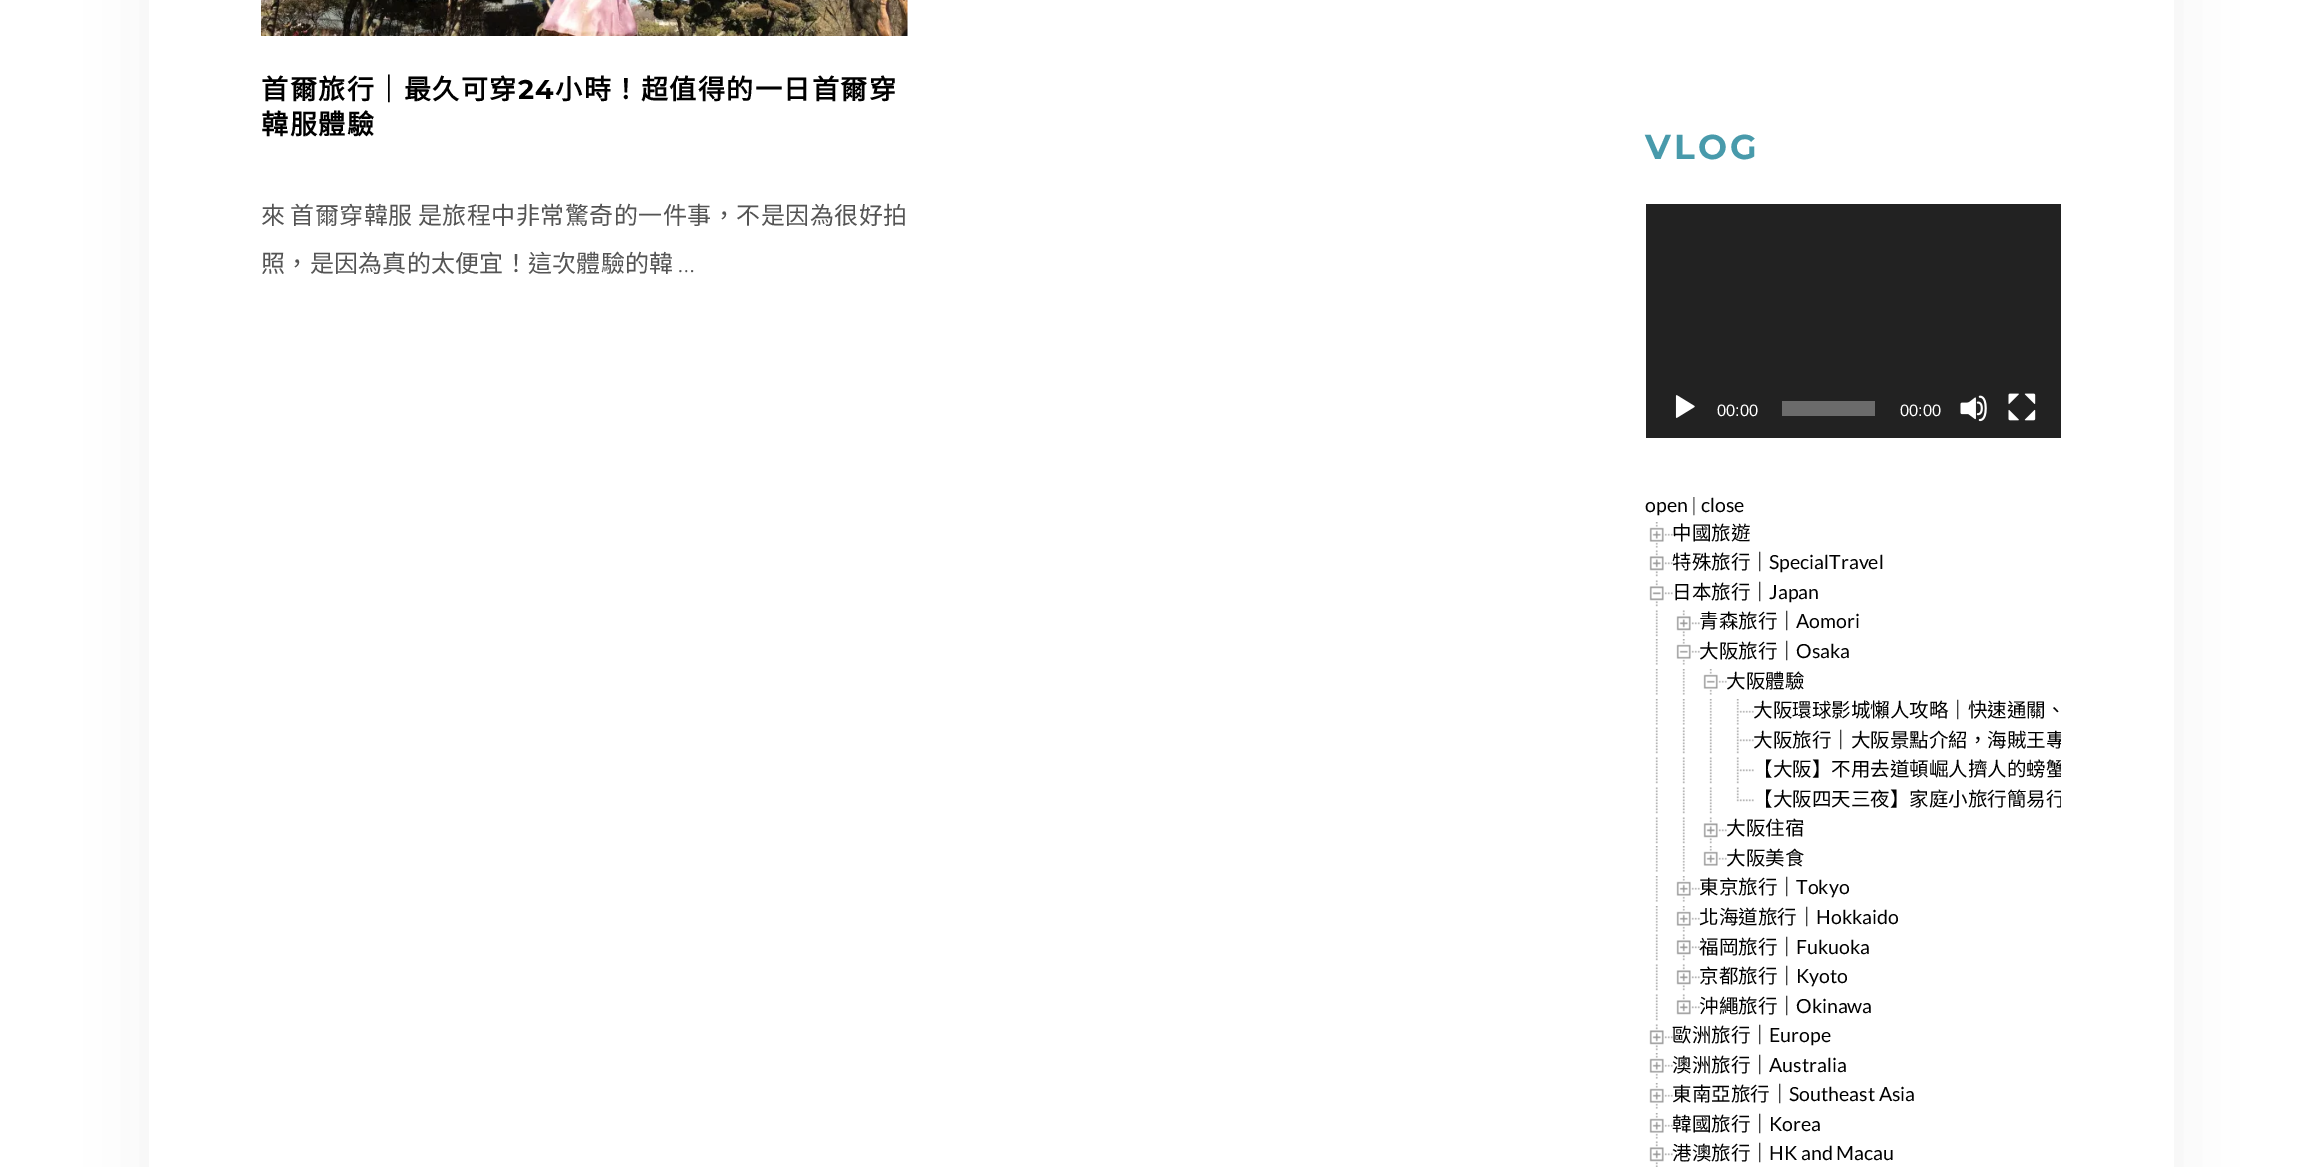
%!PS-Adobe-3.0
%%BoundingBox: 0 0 2322 1167
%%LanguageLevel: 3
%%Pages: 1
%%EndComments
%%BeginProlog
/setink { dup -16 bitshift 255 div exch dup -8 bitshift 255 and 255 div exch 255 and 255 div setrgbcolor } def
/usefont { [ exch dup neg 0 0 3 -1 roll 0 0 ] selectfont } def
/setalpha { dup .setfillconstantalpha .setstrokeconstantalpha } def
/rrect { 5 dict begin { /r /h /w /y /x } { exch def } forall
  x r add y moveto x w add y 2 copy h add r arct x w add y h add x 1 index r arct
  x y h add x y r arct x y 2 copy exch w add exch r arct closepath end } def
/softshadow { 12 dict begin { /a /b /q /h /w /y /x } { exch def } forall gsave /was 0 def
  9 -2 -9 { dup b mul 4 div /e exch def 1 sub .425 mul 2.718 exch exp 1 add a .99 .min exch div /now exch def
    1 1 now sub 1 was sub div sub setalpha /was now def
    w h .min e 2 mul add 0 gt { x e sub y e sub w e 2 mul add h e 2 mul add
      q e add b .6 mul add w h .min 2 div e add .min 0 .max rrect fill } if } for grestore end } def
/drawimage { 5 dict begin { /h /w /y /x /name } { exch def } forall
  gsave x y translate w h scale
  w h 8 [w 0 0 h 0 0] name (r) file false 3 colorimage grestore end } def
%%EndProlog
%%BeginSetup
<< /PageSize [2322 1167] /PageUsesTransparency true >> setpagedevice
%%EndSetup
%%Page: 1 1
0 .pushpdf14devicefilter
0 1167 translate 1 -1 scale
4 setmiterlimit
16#FFFFFF setink
0 0 2322 1167 rectfill
16#000000 setink
149 -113 2025 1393 0 37.5 0.06 softshadow
16#FFFFFF setink
149 0 2025 1167 rectfill
(img1.raw) 261 0 647 36 drawimage
/NotoSansCJKTC-Bold 27 usefont
16#000000 setink
261 99 moveto 1.5 0 (首爾旅行｜最久可穿) ashow
/Montserrat-Bold 27 usefont
518 99 moveto 1.5 0 (24) ashow
/NotoSansCJKTC-Bold 27 usefont
555 99 moveto 1.5 0 (小時！超值得的一日首爾穿) ashow
261 134 moveto 1.5 0 (韓服體驗) ashow
/NotoSansCJKTC-Regular 24 usefont
16#545454 setink
261 224 moveto -1 0 32 0.5 0 (來 首爾穿韓服 是旅程中非常驚奇的一件事，不是因為很好拍) awidthshow
261 272 moveto 0.25 0 (照，是因為真的太便宜！這次體驗的韓) ashow
/Lato-Light 24 usefont
678 272 moveto 0.25 0 (…) ashow
/Montserrat-Bold 34.5 usefont
16#489AAB setink
1645 159 moveto 3 0 (VLOG) ashow
16#222222 setink
1646 204 415 234 rectfill
(img2.raw) 1675 395 20 23 drawimage
/LiberationSans-Regular 16.5 usefont
16#FFFFFF setink
1717 416 moveto (00:00) show
16#6B6B6B setink
1782 401 93 15 rectfill
16#FFFFFF setink
1900 416 moveto (00:00) show
(img3.raw) 1960 395 27 27 drawimage
(img4.raw) 2008 393 28 28 drawimage
/Lato-Regular 19.5 usefont
16#000000 setink
1645 512 moveto (open) show
16#545454 setink
1691 512 moveto (|) show
16#000000 setink
1701 512 moveto (close) show
(img5.raw) 1649 522 24 26 drawimage
/NotoSansCJKTC-Regular 19.5 usefont
1672 540 moveto (中國旅遊) show
(img6.raw) 1649 550 24 27 drawimage
1672 569 moveto (特殊旅行｜) show
/Lato-Regular 19.5 usefont
1769 569 moveto (SpecialTravel) show
(img7.raw) 1649 580 24 27 drawimage
/NotoSansCJKTC-Regular 19.5 usefont
1672 599 moveto (日本旅行｜) show
/Lato-Regular 19.5 usefont
1769 599 moveto (Japan) show
(img8.raw) 1655 610 3 27 drawimage
(img6.raw) 1676 610 24 27 drawimage
/NotoSansCJKTC-Regular 19.5 usefont
1699 628 moveto (青森旅行｜) show
/Lato-Regular 19.5 usefont
1796 628 moveto (Aomori) show
(img9.raw) 1655 639 3 26 drawimage
(img10.raw) 1676 639 24 26 drawimage
/NotoSansCJKTC-Regular 19.5 usefont
1699 658 moveto (大阪旅行｜) show
/Lato-Regular 19.5 usefont
1796 658 moveto (Osaka) show
(img9.raw) 1655 669 3 26 drawimage
(img9.raw) 1682 669 3 26 drawimage
(img10.raw) 1703 669 24 26 drawimage
/NotoSansCJKTC-Regular 19.5 usefont
1726 688 moveto (大阪體驗) show
(img9.raw) 1655 699 3 26 drawimage
(img9.raw) 1682 699 3 26 drawimage
(img9.raw) 1709 699 3 26 drawimage
(img11.raw) 1736 699 18 26 drawimage
1753 717 moveto (大阪環球影城懶人攻略｜快速通關、) show
(img8.raw) 1655 727 3 27 drawimage
(img8.raw) 1682 727 3 27 drawimage
(img8.raw) 1709 727 3 27 drawimage
(img12.raw) 1736 727 18 27 drawimage
gsave
1646 696 415 119 rectclip
1753 747 moveto (大阪旅行｜大阪景點介紹，海賊王專) show
grestore
(img8.raw) 1655 757 3 27 drawimage
(img8.raw) 1682 757 3 27 drawimage
(img8.raw) 1709 757 3 27 drawimage
(img12.raw) 1736 757 18 27 drawimage
gsave
1646 696 415 119 rectclip
1753 776 moveto (【大阪】不用去道頓崛人擠人的螃蟹) show
grestore
(img8.raw) 1655 787 3 27 drawimage
(img8.raw) 1682 787 3 27 drawimage
(img8.raw) 1709 787 3 27 drawimage
(img13.raw) 1736 787 18 15 drawimage
gsave
1646 696 415 119 rectclip
1753 806 moveto (【大阪四天三夜】家庭小旅行簡易行) show
grestore
(img8.raw) 1655 817 3 27 drawimage
(img8.raw) 1682 817 3 27 drawimage
(img6.raw) 1703 817 24 27 drawimage
1726 835 moveto (大阪住宿) show
(img9.raw) 1655 846 3 26 drawimage
(img9.raw) 1682 846 3 26 drawimage
(img14.raw) 1703 846 24 20 drawimage
1726 865 moveto (大阪美食) show
(img9.raw) 1655 876 3 26 drawimage
(img5.raw) 1676 876 24 26 drawimage
1699 894 moveto (東京旅行｜) show
/Lato-Regular 19.5 usefont
1796 894 moveto (Tokyo) show
(img9.raw) 1655 906 3 26 drawimage
(img5.raw) 1676 906 24 26 drawimage
/NotoSansCJKTC-Regular 19.5 usefont
1699 924 moveto (北海道旅行｜) show
/Lato-Regular 19.5 usefont
1816 924 moveto (Hokkaido) show
(img8.raw) 1655 934 3 27 drawimage
(img6.raw) 1676 934 24 27 drawimage
/NotoSansCJKTC-Regular 19.5 usefont
1699 954 moveto (福岡旅行｜) show
/Lato-Regular 19.5 usefont
1796 954 moveto (Fukuoka) show
(img8.raw) 1655 964 3 27 drawimage
(img6.raw) 1676 964 24 27 drawimage
/NotoSansCJKTC-Regular 19.5 usefont
1699 983 moveto (京都旅行｜) show
/Lato-Regular 19.5 usefont
1796 983 moveto (Kyoto) show
(img8.raw) 1655 994 3 27 drawimage
(img15.raw) 1676 994 24 21 drawimage
/NotoSansCJKTC-Regular 19.5 usefont
1699 1013 moveto (沖繩旅行｜) show
/Lato-Regular 19.5 usefont
1796 1013 moveto (Okinawa) show
(img6.raw) 1649 1024 24 27 drawimage
/NotoSansCJKTC-Regular 19.5 usefont
1672 1042 moveto (歐洲旅行｜) show
/Lato-Regular 19.5 usefont
1769 1042 moveto (Europe) show
(img5.raw) 1649 1053 24 26 drawimage
/NotoSansCJKTC-Regular 19.5 usefont
1672 1072 moveto (澳洲旅行｜) show
/Lato-Regular 19.5 usefont
1769 1072 moveto (Australia) show
(img5.raw) 1649 1083 24 26 drawimage
/NotoSansCJKTC-Regular 19.5 usefont
1672 1101 moveto (東南亞旅行｜) show
/Lato-Regular 19.5 usefont
1789 1101 moveto (Southeast Asia) show
(img5.raw) 1649 1113 24 26 drawimage
/NotoSansCJKTC-Regular 19.5 usefont
1672 1131 moveto (韓國旅行｜) show
/Lato-Regular 19.5 usefont
1769 1131 moveto (Korea) show
(img16.raw) 1649 1141 24 26 drawimage
/NotoSansCJKTC-Regular 19.5 usefont
1672 1160 moveto (港澳旅行｜) show
/Lato-Regular 19.5 usefont
1769 1160 moveto (HK and Macau) show
.poppdf14devicefilter showpage
%%EOF
